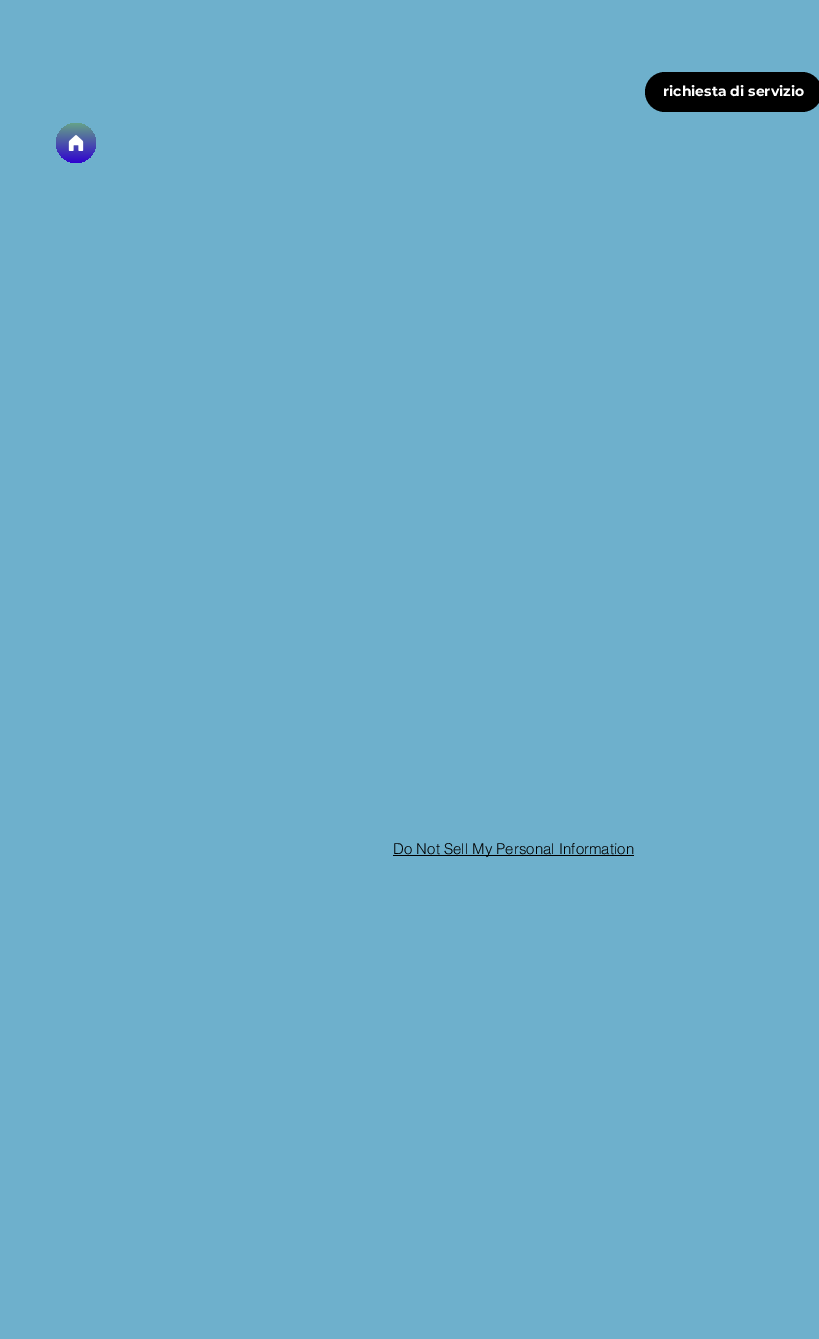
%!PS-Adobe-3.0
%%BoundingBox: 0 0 819 1339
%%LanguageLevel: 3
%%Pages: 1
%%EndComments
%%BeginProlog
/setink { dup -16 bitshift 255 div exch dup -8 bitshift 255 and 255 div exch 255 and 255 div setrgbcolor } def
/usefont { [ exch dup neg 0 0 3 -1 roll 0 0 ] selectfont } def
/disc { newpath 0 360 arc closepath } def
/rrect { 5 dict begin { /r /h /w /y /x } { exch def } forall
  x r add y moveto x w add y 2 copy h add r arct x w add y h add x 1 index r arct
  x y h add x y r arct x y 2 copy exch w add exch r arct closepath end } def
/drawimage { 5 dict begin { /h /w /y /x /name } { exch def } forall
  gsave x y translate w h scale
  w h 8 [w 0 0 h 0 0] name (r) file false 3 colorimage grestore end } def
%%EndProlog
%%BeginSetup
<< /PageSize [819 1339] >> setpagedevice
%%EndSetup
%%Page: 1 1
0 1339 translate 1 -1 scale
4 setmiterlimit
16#6EB0CC setink
0 0 819 1339 rectfill
16#000000 setink
645 72 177 40 20 rrect fill
/Montserrat-Bold 14 usefont
16#FFFFFF setink
663 96 moveto (richiesta di servizio) show
gsave 76 143 20 disc clip newpath
<< /ShadingType 2 /ColorSpace /DeviceRGB /Coords [76 123 76 163] /Extend [true true] /Function << /FunctionType 2 /Domain [0 1] /C0 [0.396 0.635 0.533] /C1 [0.188 0.008 0.812] /N 1 >> >> shfill grestore
(img1.raw) 68 135 16 16 drawimage
16#000000 setink
393 855 241 1 rectfill
/helvetica-Light 15 usefont
393 854 moveto (Do Not Sell My Personal Information) show
showpage
%%EOF
